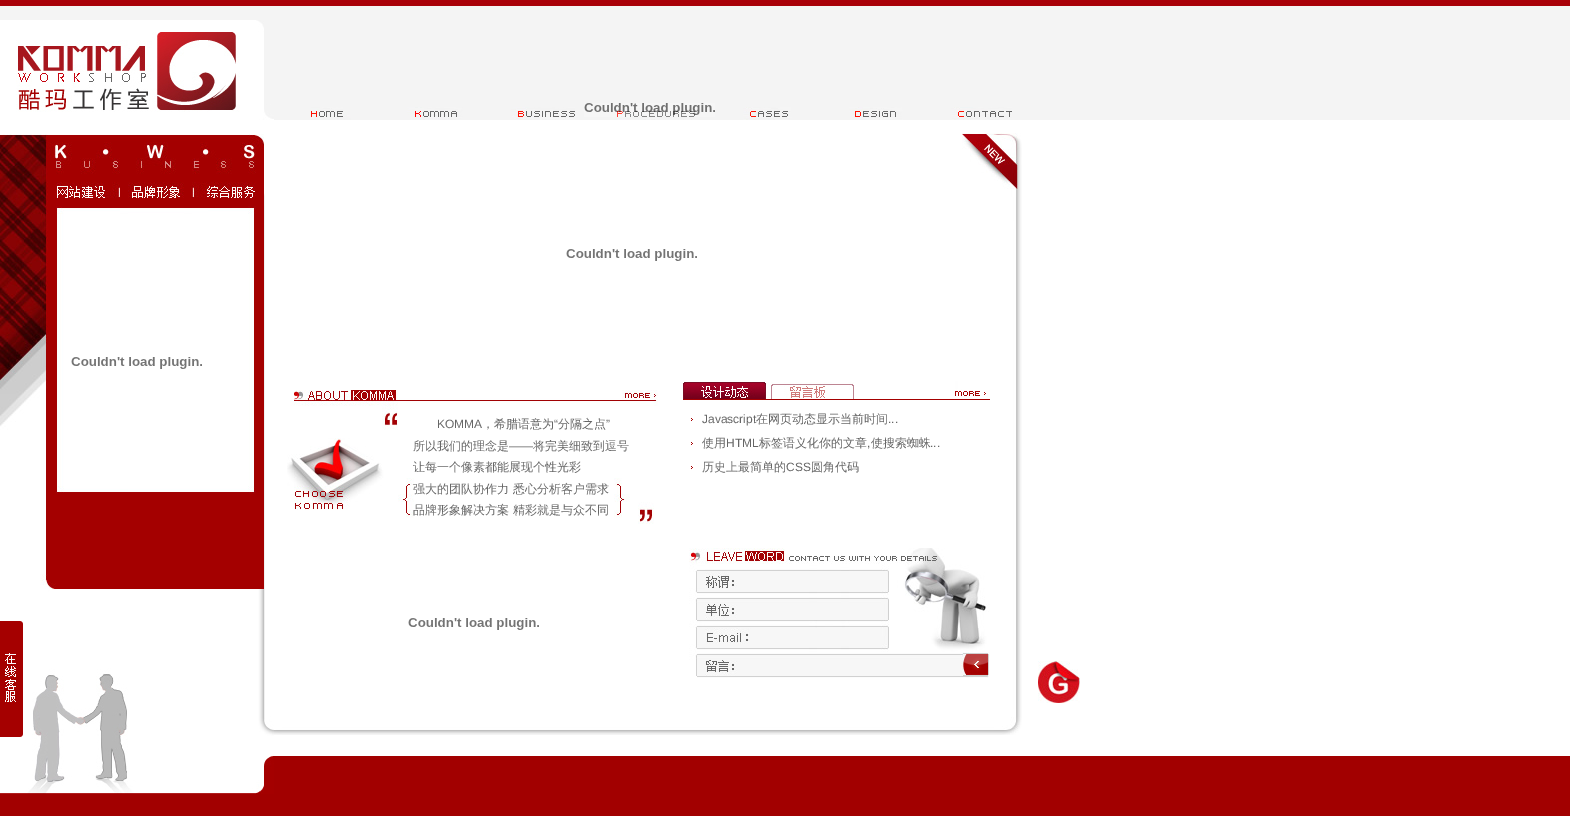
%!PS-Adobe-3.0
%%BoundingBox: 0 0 1570 816
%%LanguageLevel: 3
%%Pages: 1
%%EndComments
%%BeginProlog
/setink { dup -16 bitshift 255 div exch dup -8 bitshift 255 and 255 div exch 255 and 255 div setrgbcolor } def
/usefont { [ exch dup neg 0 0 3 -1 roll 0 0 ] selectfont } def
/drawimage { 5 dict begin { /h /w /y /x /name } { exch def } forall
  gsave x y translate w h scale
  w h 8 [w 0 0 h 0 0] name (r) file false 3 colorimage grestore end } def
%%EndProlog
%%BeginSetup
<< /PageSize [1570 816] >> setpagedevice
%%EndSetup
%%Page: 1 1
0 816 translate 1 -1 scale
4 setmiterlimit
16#A20000 setink
0 0 1570 816 rectfill
(img1.raw) 0 0 1570 756 drawimage
(img2.raw) 0 588 274 206 drawimage
(img3.raw) 0 20 274 100 drawimage
(img4.raw) 0 134 265 455 drawimage
(img5.raw) 71 357 131 12 drawimage
(img6.raw) 274 133 748 602 drawimage
(img7.raw) 311 107 701 13 drawimage
(img8.raw) 584 103 131 14 drawimage
(img5.raw) 566 249 131 12 drawimage
(img9.raw) 287 390 371 134 drawimage
/LiberationSans-Regular 12 usefont
16#666666 setink
437 428 moveto (KOMMA) show
/WenQuanYiZenHei-Medium 12 usefont
482 428 moveto (，希腊语意为) show
/LiberationSans-Regular 12 usefont
554 428 moveto (“) show
/WenQuanYiZenHei-Medium 12 usefont
558 428 moveto (分隔之点) show
/LiberationSans-Regular 12 usefont
606 428 moveto (”) show
/WenQuanYiZenHei-Medium 12 usefont
413 450 moveto (所以我们的理念是) show
/LiberationSans-Regular 12 usefont
509 450 moveto (——) show
/WenQuanYiZenHei-Medium 12 usefont
[
    [(将完美细致到逗号) 533 450]
    [(让每一个像素都能展现个性光彩) 413 471]
    [(强大的团队协作力 悉心分析客户需求) 413 493]
    [(品牌形象解决方案 精彩就是与众不同) 413 514]
] { aload pop moveto show } forall
16#A40000 setink
683 399 307 1 rectfill
(img10.raw) 683 382 83 17 drawimage
(img11.raw) 771 382 83 17 drawimage
(img12.raw) 955 391 31 5 drawimage
(img13.raw) 691 418 2 3 drawimage
/LiberationSans-Regular 12 usefont
16#666666 setink
702 423 moveto (Javascript) show
/WenQuanYiZenHei-Medium 12 usefont
756 423 moveto (在网页动态显示当前时间) show
/LiberationSans-Regular 12 usefont
888 423 moveto (...) show
(img13.raw) 691 442 2 3 drawimage
/WenQuanYiZenHei-Medium 12 usefont
702 447 moveto (使用) show
/LiberationSans-Regular 12 usefont
726 447 moveto (HTML) show
/WenQuanYiZenHei-Medium 12 usefont
759 447 moveto (标签语义化你的文章 使搜索蜘蛛) show
/LiberationSans-Regular 12 usefont
867 447 moveto (,) show
930 447 moveto (...) show
(img13.raw) 691 466 2 3 drawimage
/WenQuanYiZenHei-Medium 12 usefont
702 471 moveto (历史上最简单的) show
/LiberationSans-Regular 12 usefont
786 471 moveto (CSS) show
/WenQuanYiZenHei-Medium 12 usefont
811 471 moveto (圆角代码) show
(img5.raw) 408 618 131 12 drawimage
(img14.raw) 689 548 301 130 drawimage
[
    [881 571 5 20 16#F7F7F7]
    [881 599 6 5 16#F7F7F7]
    [749 629 133 17 16#F7F7F7]
] { aload pop setink rectfill } forall
(img15.raw) 963 653 26 23 drawimage
(img16.raw) 0 621 23 116 drawimage
(img17.raw) 1038 661 42 42 drawimage
showpage
%%EOF
